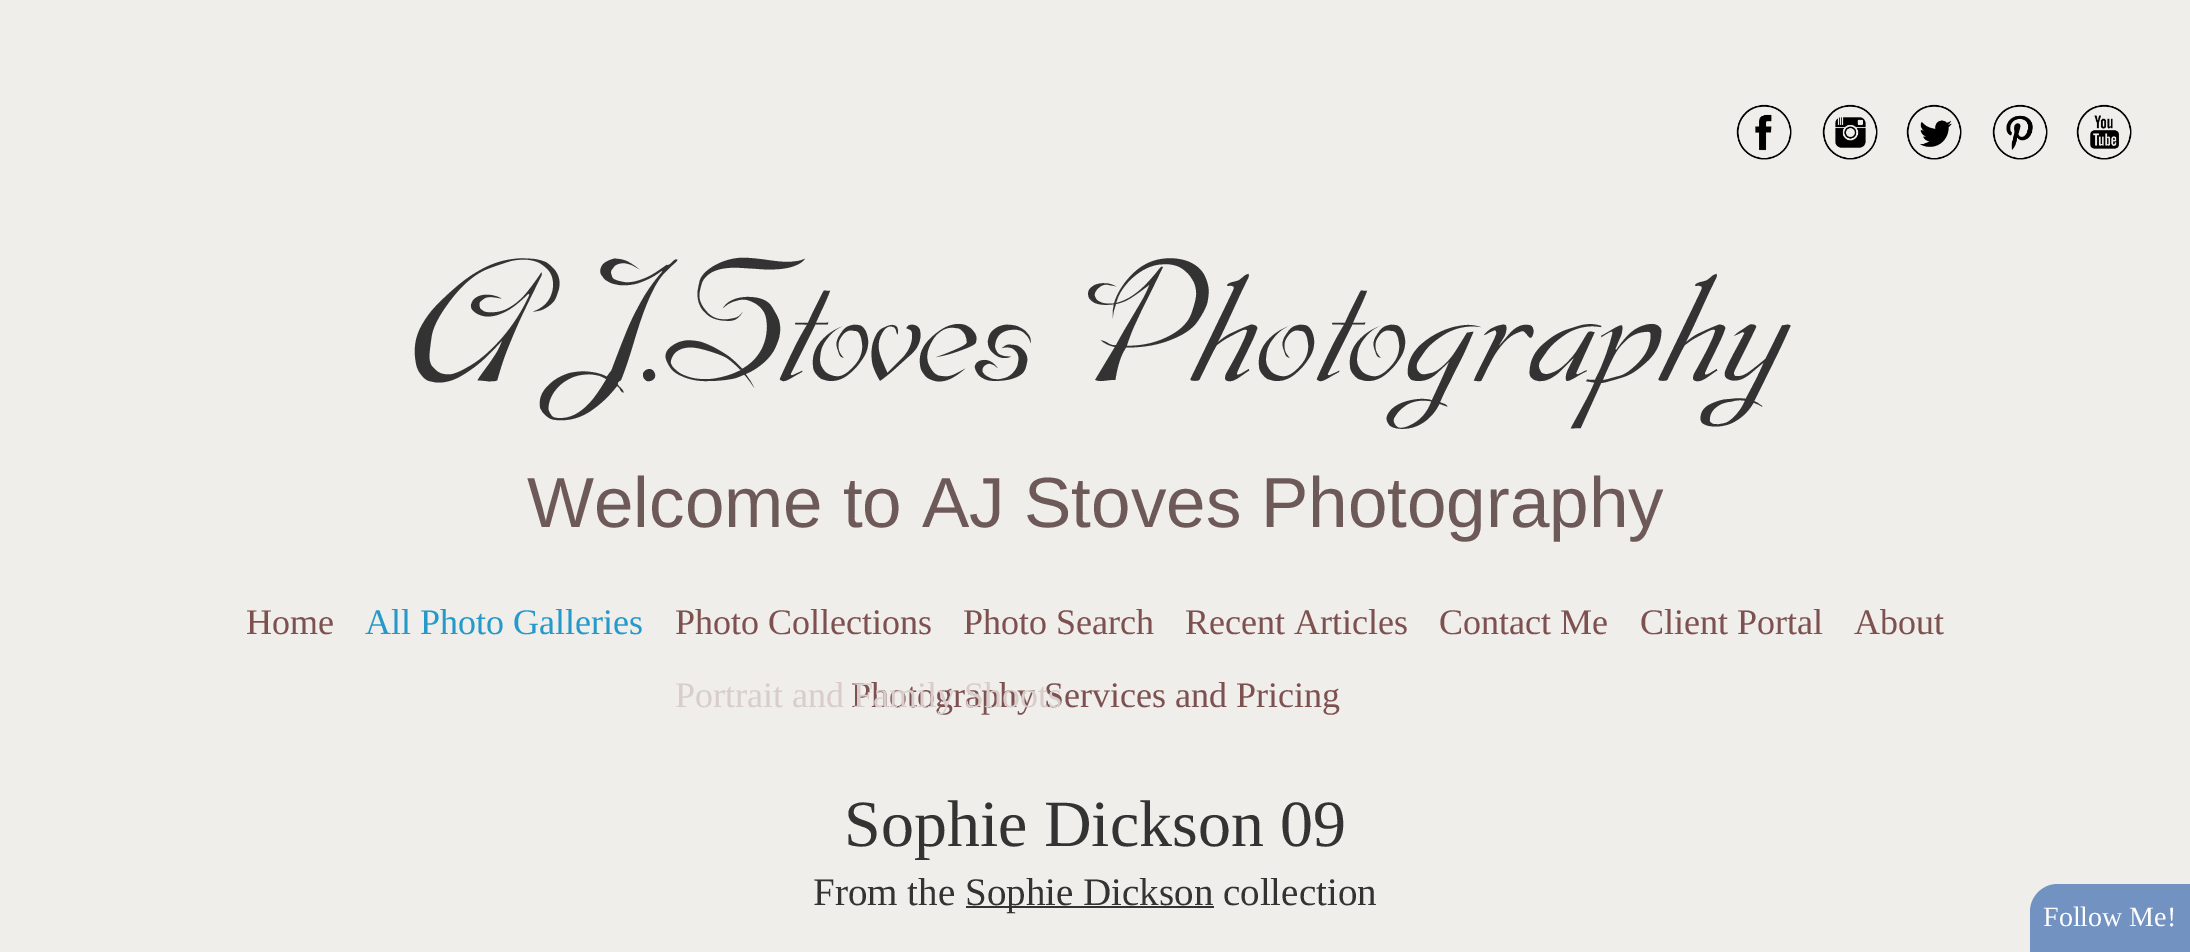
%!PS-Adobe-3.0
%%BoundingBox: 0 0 2190 952
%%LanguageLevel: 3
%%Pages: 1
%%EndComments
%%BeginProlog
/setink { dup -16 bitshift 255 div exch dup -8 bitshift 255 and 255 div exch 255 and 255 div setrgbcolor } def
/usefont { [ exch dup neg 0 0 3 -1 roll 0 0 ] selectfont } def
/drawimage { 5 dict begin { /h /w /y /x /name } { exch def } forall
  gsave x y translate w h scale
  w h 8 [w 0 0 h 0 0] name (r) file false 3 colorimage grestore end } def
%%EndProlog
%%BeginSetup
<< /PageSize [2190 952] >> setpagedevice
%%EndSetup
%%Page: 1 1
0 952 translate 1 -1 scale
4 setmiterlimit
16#F0EEEB setink
0 0 2190 952 rectfill
(img1.raw) 1736 104 56 56 drawimage
(img2.raw) 1822 104 56 56 drawimage
(img3.raw) 1906 104 56 56 drawimage
(img4.raw) 1992 104 56 56 drawimage
(img5.raw) 2076 104 56 56 drawimage
/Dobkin-Medium 172 usefont
16#333333 setink
408 381 moveto (AJ.Stoves Photography) show
/LiberationSans-Regular 71 usefont
16#6E5959 setink
527 527 moveto (Welcome to AJ Stoves Photography) show
/LiberationSerif-Regular 36 usefont
16#2499CA setink
365 634 moveto (All Photo Galleries) show
16#7E5151 setink
675 634 moveto (Photo Collections) show
851 707 moveto (Photography Services and Pricing) show
16#D8CDCB setink
675 707 moveto (Portrait and Family Shoots) show
16#7E5151 setink
[
    [(Home) 246 634]
    [(Photo Search) 963 634]
    [(Recent Articles) 1185 634]
    [(Contact Me) 1439 634]
    [(Client Portal) 1640 634]
    [(About) 1854 634]
] { aload pop moveto show } forall
/LiberationSerif-Regular 66 usefont
16#333333 setink
844 846 moveto (Sophie Dickson 09) show
/LiberationSerif-Regular 39 usefont
813 905 moveto (From the) show
966 906 248 2 rectfill
965 905 moveto (Sophie Dickson collection) show
16#7292C2 setink
2058 884 moveto 2190 884 lineto 2190 952 lineto 2030 952 lineto 2030 912 lineto 2030 896.5 2042.5 884 2058 884 curveto closepath fill
/LiberationSerif-Regular 28 usefont
16#FFFFFF setink
2043 926 moveto (Follow Me!) show
showpage
%%EOF
